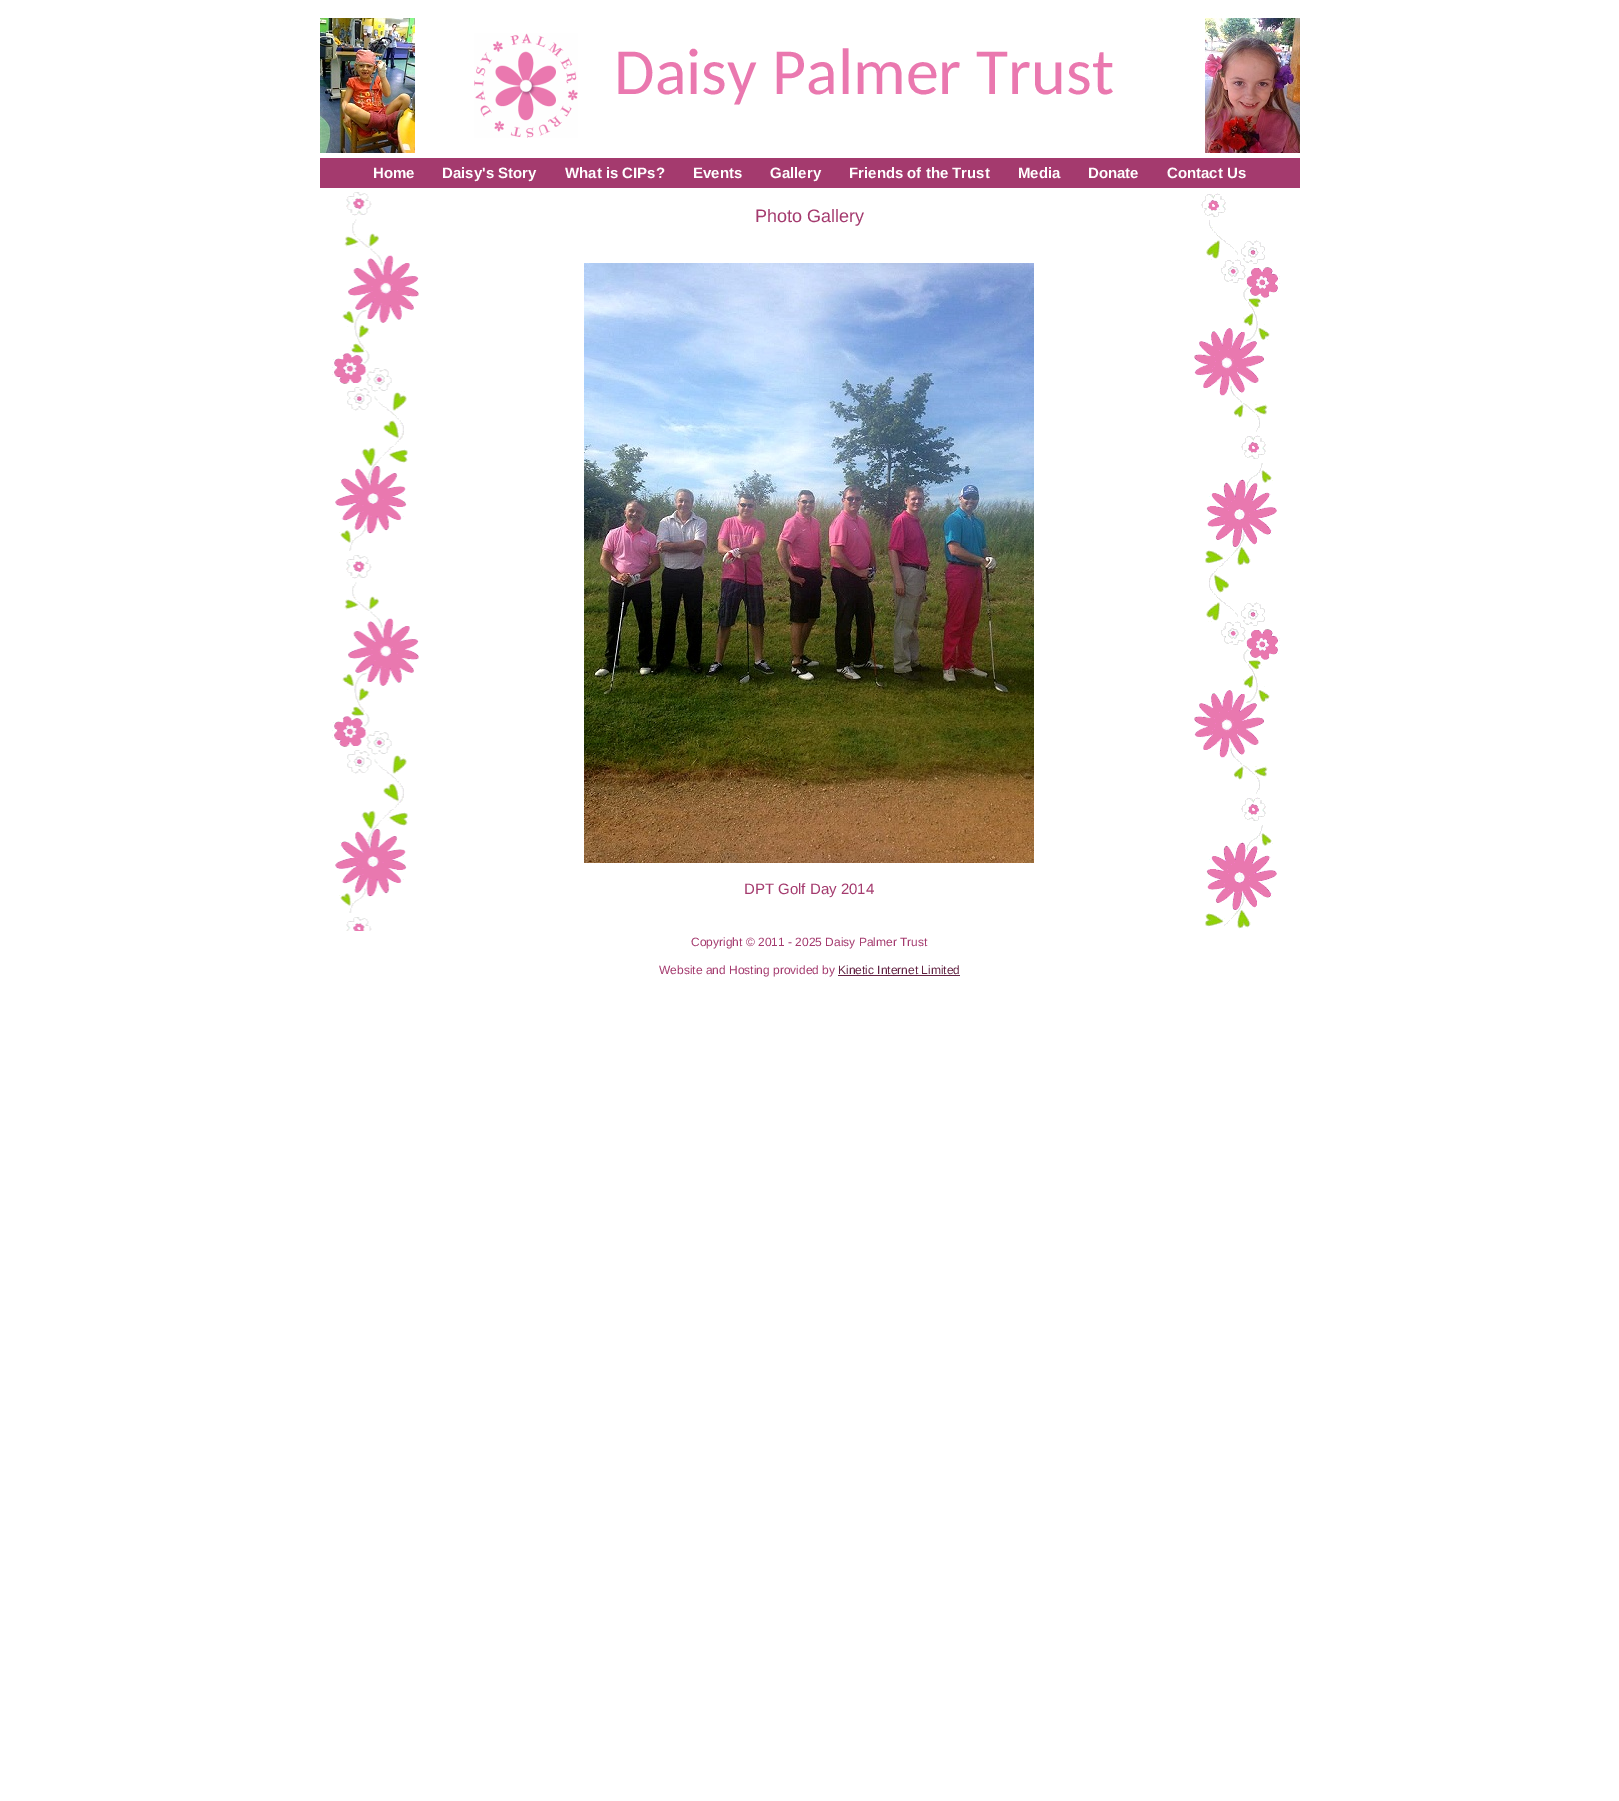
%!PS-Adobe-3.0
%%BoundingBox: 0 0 1619 1801
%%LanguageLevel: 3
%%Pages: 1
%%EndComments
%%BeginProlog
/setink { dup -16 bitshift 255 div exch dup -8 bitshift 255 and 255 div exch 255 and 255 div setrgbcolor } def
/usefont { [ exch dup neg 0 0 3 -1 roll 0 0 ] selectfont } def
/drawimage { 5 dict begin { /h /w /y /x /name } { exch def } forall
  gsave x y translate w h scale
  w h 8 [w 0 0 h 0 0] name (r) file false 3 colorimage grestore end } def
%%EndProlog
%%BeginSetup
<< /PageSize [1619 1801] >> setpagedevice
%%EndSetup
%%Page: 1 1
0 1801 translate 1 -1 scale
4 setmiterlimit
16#FFFFFF setink
0 0 1619 1801 rectfill
(img1.raw) 320 18 95 135 drawimage
(img2.raw) 474 33 104 105 drawimage
/Carlito-Regular 66 usefont
16#EA78AF setink
614 94 moveto (Daisy Palmer Trust) show
(img3.raw) 1205 18 95 135 drawimage
16#A43A6E setink
320 158 980 30 rectfill
/LiberationSans-Bold 15 usefont
16#FFFFFF setink
[
    [(Home) 373 178]
    [(Daisy's Story) 442 178]
    [(What is CIPs?) 565 178]
    [(Events) 693 178]
    [(Gallery) 770 178]
    [(Friends of the Trust) 849 178]
    [(Media) 1018 178]
    [(Donate) 1088 178]
    [(Contact Us) 1167 178]
] { aload pop moveto show } forall
(img4.raw) 332 192 87 739 drawimage
/LiberationSans-Regular 18 usefont
16#A43A6E setink
755 222 moveto (Photo Gallery) show
(img5.raw) 584 263 450 600 drawimage
/LiberationSans-Regular 15 usefont
744 894 moveto (DPT Golf Day 2014) show
(img6.raw) 1194 193 86 736 drawimage
/LiberationSans-Regular 12 usefont
691 946 moveto (Copyright © 2011 - 2025 Daisy Palmer Trust) show
659 974 moveto (Website and Hosting provided by) show
16#632343 setink
838 974 moveto (Kinetic Internet Limited) show
838 975 122 1 rectfill
showpage
%%EOF
